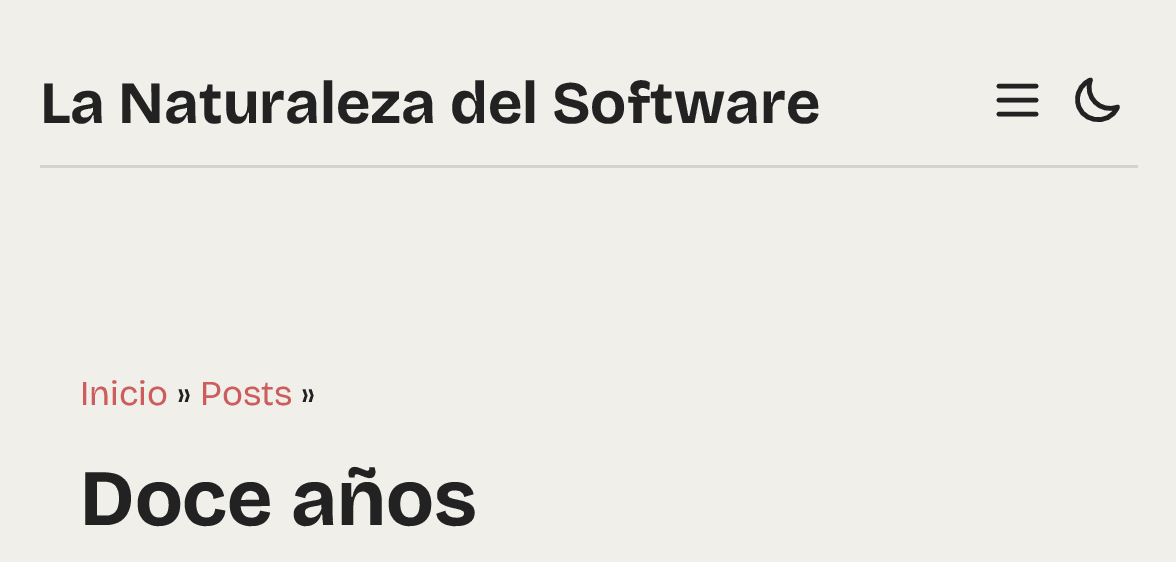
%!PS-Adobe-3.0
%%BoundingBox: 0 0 1176 562
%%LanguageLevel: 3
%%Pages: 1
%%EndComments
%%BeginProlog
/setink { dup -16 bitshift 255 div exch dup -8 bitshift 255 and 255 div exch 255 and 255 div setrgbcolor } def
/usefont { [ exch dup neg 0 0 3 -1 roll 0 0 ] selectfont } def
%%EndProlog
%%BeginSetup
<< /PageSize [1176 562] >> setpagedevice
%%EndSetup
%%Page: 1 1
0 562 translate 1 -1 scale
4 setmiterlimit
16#F0EFEA setink
0 0 1176 562 rectfill
16#D4D3D0 setink
40 165 1098 3 rectfill
/BricolageGrotesque-Bold 60 usefont
16#222222 setink
40 123 moveto (La Naturaleza del Software) show
4.6 setlinewidth
1 setlinecap
1 setlinejoin
999 86 moveto 1036 86 lineto 999 100 moveto 1036 100 lineto 999 114 moveto 1036 114 lineto stroke
1077.5 99.5 moveto 1077.5 122 1109 127.5 1117.5 107 curveto 1100.5 113.5 1084 97 1090.5 80 curveto 1083 83 1077.5 90.5 1077.5 99.5 curveto closepath stroke
/BricolageGrotesque-Regular 35 usefont
16#CD5C5C setink
80 405 moveto (Inicio) show
16#222222 setink
177 405 moveto (») show
16#CD5C5C setink
200 405 moveto (Posts) show
16#222222 setink
301 405 moveto (») show
/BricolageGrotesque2-Bold 80 usefont
80 525 moveto (Doce años) show
showpage
%%EOF
